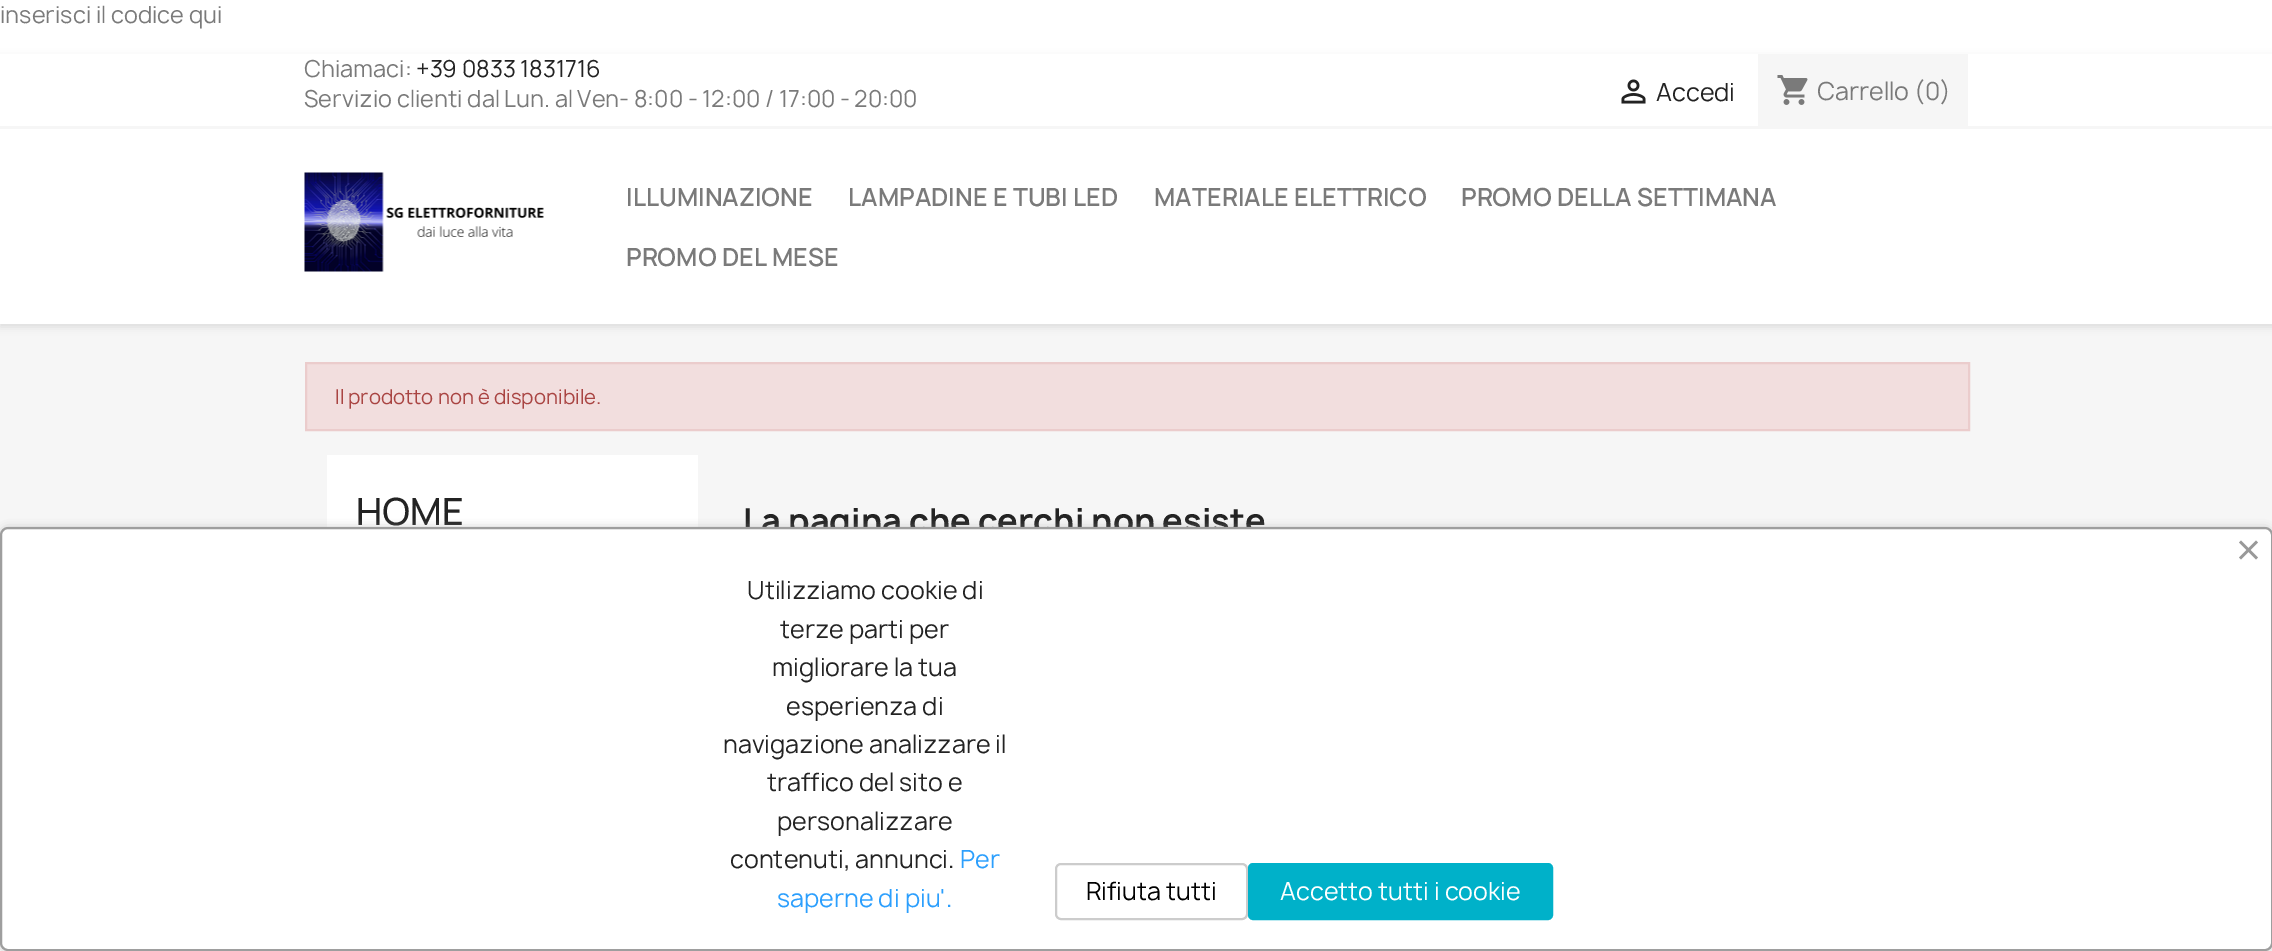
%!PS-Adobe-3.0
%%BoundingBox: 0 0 2272 951
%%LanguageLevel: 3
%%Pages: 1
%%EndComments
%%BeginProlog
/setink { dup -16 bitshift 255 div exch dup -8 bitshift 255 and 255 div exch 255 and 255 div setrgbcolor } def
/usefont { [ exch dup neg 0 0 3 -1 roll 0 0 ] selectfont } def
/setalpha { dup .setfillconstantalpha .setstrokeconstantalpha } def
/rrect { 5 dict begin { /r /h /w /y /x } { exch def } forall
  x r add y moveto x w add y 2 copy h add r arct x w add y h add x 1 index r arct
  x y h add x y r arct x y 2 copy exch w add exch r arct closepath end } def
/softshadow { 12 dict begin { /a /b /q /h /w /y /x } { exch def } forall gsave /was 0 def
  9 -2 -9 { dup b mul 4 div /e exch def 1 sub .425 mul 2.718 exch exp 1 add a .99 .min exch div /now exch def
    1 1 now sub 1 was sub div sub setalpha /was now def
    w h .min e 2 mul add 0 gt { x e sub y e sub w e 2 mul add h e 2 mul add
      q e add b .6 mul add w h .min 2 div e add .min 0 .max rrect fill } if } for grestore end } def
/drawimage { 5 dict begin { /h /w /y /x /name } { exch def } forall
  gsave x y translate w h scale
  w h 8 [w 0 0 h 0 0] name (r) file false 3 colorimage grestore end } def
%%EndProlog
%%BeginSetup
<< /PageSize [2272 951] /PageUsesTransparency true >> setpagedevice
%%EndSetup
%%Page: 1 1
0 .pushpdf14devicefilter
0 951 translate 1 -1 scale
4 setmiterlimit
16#FFFFFF setink
0 0 2272 951 rectfill
/Manrope-Regular 22.5 usefont
16#7A7A7A setink
0 23 moveto (inserisci il codice qui) show
16#F6F6F6 setink
0 324 2272 627 rectfill
gsave
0 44 moveto 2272 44 lineto 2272 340 lineto 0 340 lineto closepath 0 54 moveto 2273 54 lineto 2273 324 lineto 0 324 lineto closepath eoclip newpath
16#000000 setink
0 57 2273 270 0 4 0.11 softshadow
grestore
0 126 2272 3 rectfill
16#7A7A7A setink
304 77 moveto (Chiamaci:) show
16#232323 setink
416 77 moveto (+39 0833 1831716) show
16#7A7A7A setink
304 107 moveto (Servizio clienti dal Lun. al Ven- 8:00 - 12:00 / 17:00 - 20:00) show
(img1.raw) 1621 79 25 25 drawimage
/Manrope-Regular 24 usefont
16#232323 setink
1656 101 moveto (Accedi) show
16#F6F6F6 setink
1758 54 210 72 rectfill
(img2.raw) 1777 75 31 30 drawimage
16#7A7A7A setink
1817 100 moveto (Carrello \(0\)) show
(img3.raw) 304 172 240 100 drawimage
/Manrope-SemiBold 24 usefont
[
    [(ILLUMINAZIONE) 626 206]
    [(LAMPADINE E TUBI LED) 848 206]
    [(MATERIALE ELETTRICO) 1154 206]
    [(PROMO DELLA SETTIMANA) 1461 206]
    [(PROMO DEL MESE) 626 266]
] { aload pop moveto show } forall
16#F2DEDE setink
306 363 moveto 1969 363 lineto 1969 430 lineto 306 430 lineto closepath gsave fill grestore
16#EBCCCC setink
2 setlinewidth
stroke
/Manrope-Regular 19.5 usefont
16#A94442 setink
335 404 moveto (Il prodotto non è disponibile.) show
16#FFFFFF setink
327 455 371 72 rectfill
/Manrope-Medium 36 usefont
16#232323 setink
356 525 moveto (HOME) show
/Manrope-Bold 33 usefont
743 533 moveto (La pagina che cerchi non esiste) show
16#9E9E9E setink
3 530 2267 418 5 5 1 softshadow
16#FFFFFF setink
1 528 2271 422 7 rrect gsave fill grestore
16#9E9E9E setink
stroke
16#999999 setink
2239 557.5 moveto 2256 540.5 lineto 2258 542.5 lineto 2241 559.5 lineto closepath fill
2241 540.5 moveto 2258 557.5 lineto 2256 559.5 lineto 2239 542.5 lineto closepath fill
/Manrope-Regular 24 usefont
16#232323 setink
[
    [(Utilizziamo cookie di) 747 599]
    [(terze parti per) 780 638]
    [(migliorare la tua) 772 676]
    [(esperienza di) 786 715]
    [(navigazione analizzare il) 723 753]
    [(traffico del sito e) 767 791]
    [(personalizzare) 777 830]
    [(contenuti, annunci.) 730 868]
] { aload pop moveto show } forall
16#2C9FFD setink
960 868 moveto (Per) show
777 907 moveto (saperne di piu'.) show
16#CCCCCC setink
1056 864 191 55 5 rrect stroke
16#000000 setink
1086 900 moveto (Rifiuta tutti) show
16#00B1C9 setink
1249 864 303 55 4 rrect gsave fill grestore
stroke
16#FFFFFF setink
1280 900 moveto (Accetto tutti i cookie) show
.poppdf14devicefilter showpage
%%EOF
